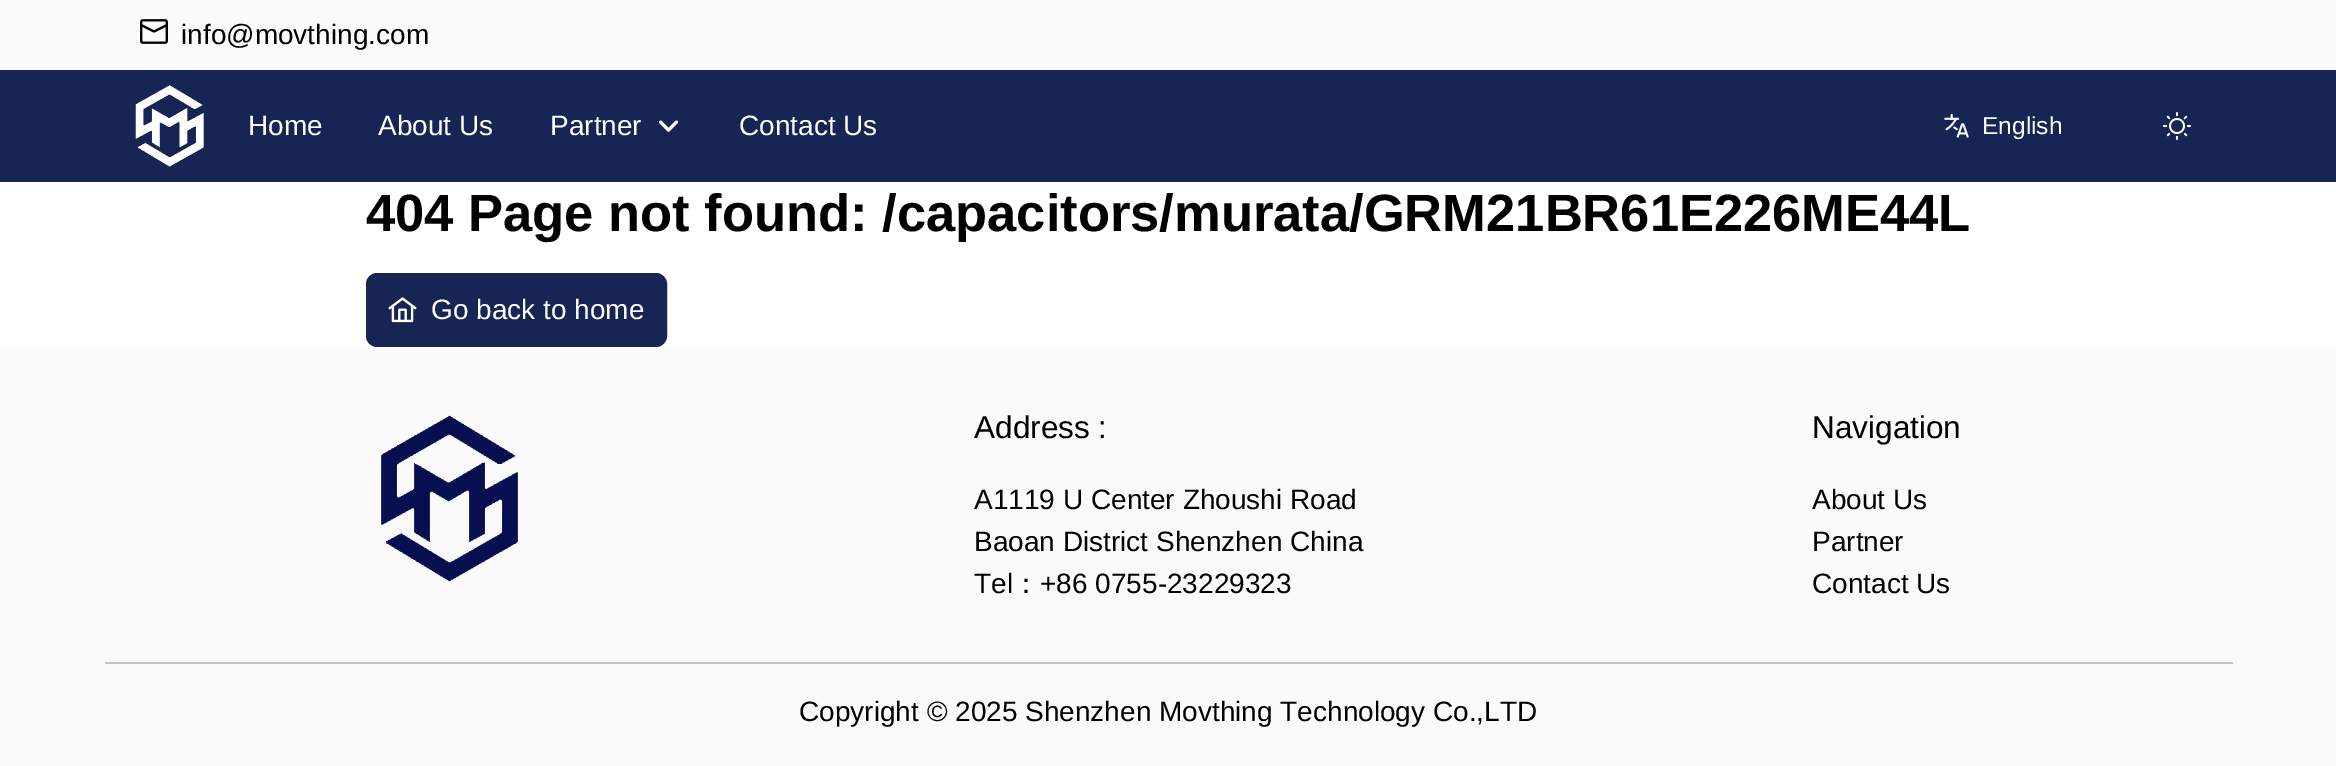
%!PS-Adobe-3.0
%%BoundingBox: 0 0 2336 766
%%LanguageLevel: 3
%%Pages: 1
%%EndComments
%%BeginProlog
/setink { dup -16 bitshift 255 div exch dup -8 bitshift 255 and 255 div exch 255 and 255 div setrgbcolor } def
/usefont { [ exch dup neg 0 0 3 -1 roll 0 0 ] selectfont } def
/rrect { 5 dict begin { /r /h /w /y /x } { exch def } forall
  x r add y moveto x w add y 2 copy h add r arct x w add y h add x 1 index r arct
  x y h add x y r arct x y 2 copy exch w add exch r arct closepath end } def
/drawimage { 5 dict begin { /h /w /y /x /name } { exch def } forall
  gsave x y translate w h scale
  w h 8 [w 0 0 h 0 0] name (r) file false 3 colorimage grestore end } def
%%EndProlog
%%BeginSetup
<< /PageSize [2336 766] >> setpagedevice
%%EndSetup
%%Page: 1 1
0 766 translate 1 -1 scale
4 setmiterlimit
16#FFFFFF setink
0 0 2336 766 rectfill
16#FAFAFA setink
0 0 2336 70 rectfill
(img1.raw) 140 19 28 25 drawimage
/LiberationSans-Regular 28 usefont
16#000000 setink
181 44 moveto (info@movthing.com) show
16#172554 setink
0 70 2336 112 rectfill
(img2.raw) 135 85 69 82 drawimage
16#FFFFFF setink
[
    [(Home) 248 135]
    [(About Us) 378 135]
    [(Partner) 550 135]
] { aload pop moveto show } forall
(img3.raw) 658 120 21 12 drawimage
739 135 moveto (Contact Us) show
(img4.raw) 1944 113 25 25 drawimage
/LiberationSans-Regular 24.5 usefont
1982 134 moveto (English) show
(img5.raw) 2163 112 28 28 drawimage
/LiberationSans-Bold 52.5 usefont
16#000000 setink
366 231 moveto (404 Page not found: /capacitors/murata/GRM21BR61E226ME44L) show
16#172554 setink
367 274 299 72 10 rrect gsave fill grestore
2 setlinewidth
stroke
(img6.raw) 388 297 29 26 drawimage
/LiberationSans-Regular 28 usefont
16#FFFFFF setink
431 319 moveto (Go back to home) show
16#FAFAFA setink
0 347 2336 419 rectfill
16#C5C5CA setink
105 662 2128 2 rectfill
(img7.raw) 381 415 137 167 drawimage
/LiberationSans-Regular 31.5 usefont
16#000000 setink
974 438 moveto (Address :) show
/LiberationSans-Regular 28 usefont
[
    [(A1119 U Center Zhoushi Road) 974 509]
    [(Baoan District Shenzhen China) 974 551]
    [(Tel) 974 593]
] { aload pop moveto show } forall
/WenQuanYiZenHei-Medium 28 usefont
1012 593 moveto (：) show
/LiberationSans-Regular 28 usefont
1040 593 moveto (+86 0755-23229323) show
/LiberationSans-Regular 31.5 usefont
1812 438 moveto (Navigation) show
/LiberationSans-Regular 28 usefont
[
    [(About Us) 1812 509]
    [(Partner) 1812 551]
    [(Contact Us) 1812 593]
    [(Copyright © 2025 Shenzhen Movthing Technology Co.,LTD) 799 721]
] { aload pop moveto show } forall
showpage
%%EOF
